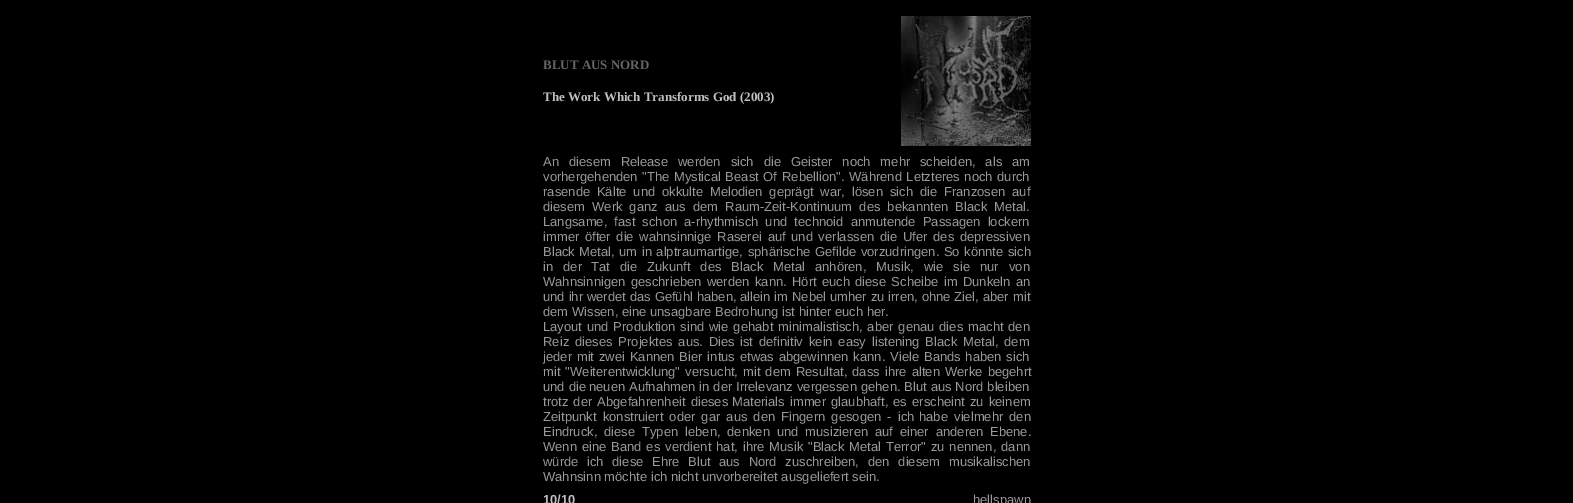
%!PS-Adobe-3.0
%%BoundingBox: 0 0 1573 503
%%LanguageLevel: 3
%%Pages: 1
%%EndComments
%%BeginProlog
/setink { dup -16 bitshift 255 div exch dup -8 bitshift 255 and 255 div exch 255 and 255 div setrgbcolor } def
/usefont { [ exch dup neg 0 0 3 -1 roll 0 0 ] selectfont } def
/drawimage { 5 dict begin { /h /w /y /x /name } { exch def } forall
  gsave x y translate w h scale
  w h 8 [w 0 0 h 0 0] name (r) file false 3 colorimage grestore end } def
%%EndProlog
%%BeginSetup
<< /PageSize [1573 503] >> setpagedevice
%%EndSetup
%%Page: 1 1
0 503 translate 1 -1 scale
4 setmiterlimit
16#000000 setink
0 0 1573 503 rectfill
/LiberationSerif-Bold 13 usefont
16#666666 setink
543 69 moveto (BLUT AUS NORD) show
16#C0C0C0 setink
543 101 moveto (The Work Which Transforms God \(2003\)) show
(img1.raw) 901 16 130 130 drawimage
/LiberationSans-Regular 13 usefont
16#999999 setink
543 166 moveto 6.25 0 32 (An diesem Release werden sich die Geister noch mehr scheiden, als am) widthshow
543 181 moveto 1 0 32 (vorhergehenden "The Mystical Beast Of) widthshow
782 181 moveto 1 0 32 (Rebellion". Während Letzteres noch durch) widthshow
543 196 moveto 3.25 0 32 (rasende Kälte und okkulte Melodien geprägt war, lösen sich die) widthshow
944 196 moveto 3.25 0 32 (Franzosen auf) widthshow
543 211 moveto 3.5 0 32 (diesem Werk ganz aus dem Raum-Zeit-Kontinuum des bekannten Black Metal.) widthshow
543 226 moveto 3.5 0 32 (Langsame, fast schon) widthshow
684 226 moveto 3.5 0 32 (a-rhythmisch und technoid anmutende Passagen lockern) widthshow
543 241 moveto 2 0 32 (immer öfter die wahnsinnige Raserei auf und verlassen die) widthshow
903 241 moveto 2 0 32 (Ufer des depressiven) widthshow
543 256 moveto 0.9 0 32 (Black Metal, um in alptraumartige, sphärische Gefilde vorzudringen. So könnte sich) widthshow
543 271 moveto 6.4 0 32 (in der) widthshow
591 271 moveto 6.4 0 32 (Tat die Zukunft des Black Metal anhören, Musik, wie sie nur von) widthshow
543 286 moveto 1.75 0 32 (Wahnsinnigen geschrieben werden kann. Hört euch) widthshow
855 286 moveto 1.75 0 32 (diese Scheibe im Dunkeln an) widthshow
543 301 moveto 0.25 0 32 (und ihr werdet das Gefühl haben, allein im Nebel umher zu irren, ohne Ziel, aber) widthshow
1013 301 moveto (mit) show
543 316 moveto (dem Wissen, eine unsagbare Bedrohung ist hinter euch her.) show
543 331 moveto 1.25 0 32 (Layout und Produktion sind wie gehabt minimalistisch, aber genau dies macht den) widthshow
543 346 moveto 2.25 0 32 (Reiz dieses Projektes aus. Dies) widthshow
740 346 moveto 2.25 0 32 (ist definitiv kein easy listening Black Metal, dem) widthshow
543 361 moveto 1.25 0 32 (jeder mit zwei Kannen Bier intus etwas abgewinnen kann. Viele) widthshow
924 361 moveto 1 0 32 (Bands haben sich) widthshow
543 376 moveto 1.5 0 32 (mit "Weiterentwicklung" versucht, mit dem Resultat, dass ihre alten Werke begehrt) widthshow
543 391 moveto 0.25 0 32 (und die) widthshow
589 391 moveto 0.25 0 32 (neuen Aufnahmen in der Irrelevanz vergessen gehen. Blut aus Nord bleiben) widthshow
543 406 moveto 1.5 0 32 (trotz der Abgefahrenheit dieses) widthshow
732 406 moveto 1.5 0 32 (Materials immer glaubhaft, es erscheint zu keinem) widthshow
543 421 moveto 2.5 0 32 (Zeitpunkt konstruiert oder gar aus den Fingern gesogen - ich) widthshow
919 421 moveto 2.5 0 32 (habe vielmehr den) widthshow
543 436 moveto 3.25 0 32 (Eindruck, diese Typen leben, denken und musizieren auf einer anderen Ebene.) widthshow
543 451 moveto 1.25 0 32 (Wenn eine Band es) widthshow
665 451 moveto 1.25 0 32 (verdient hat, ihre Musik "Black Metal Terror" zu nennen, dann) widthshow
543 466 moveto 5 0 32 (würde ich diese Ehre Blut aus Nord zuschreiben,) widthshow
868 466 moveto 5 0 32 (den diesem musikalischen) widthshow
543 481 moveto (Wahnsinn möchte ich nicht unvorbereitet ausgeliefert sein.) show
/LiberationSans-Bold 13 usefont
16#C0C0C0 setink
543 504 moveto (10/10) show
/LiberationSans-Regular 13 usefont
16#999999 setink
973 504 moveto (hellspawn) show
showpage
%%EOF
